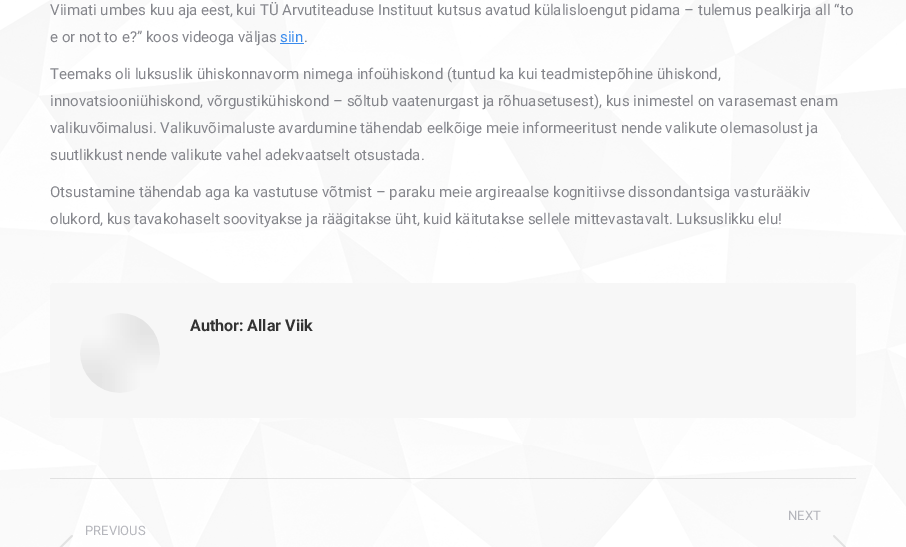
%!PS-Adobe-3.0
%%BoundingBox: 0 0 906 547
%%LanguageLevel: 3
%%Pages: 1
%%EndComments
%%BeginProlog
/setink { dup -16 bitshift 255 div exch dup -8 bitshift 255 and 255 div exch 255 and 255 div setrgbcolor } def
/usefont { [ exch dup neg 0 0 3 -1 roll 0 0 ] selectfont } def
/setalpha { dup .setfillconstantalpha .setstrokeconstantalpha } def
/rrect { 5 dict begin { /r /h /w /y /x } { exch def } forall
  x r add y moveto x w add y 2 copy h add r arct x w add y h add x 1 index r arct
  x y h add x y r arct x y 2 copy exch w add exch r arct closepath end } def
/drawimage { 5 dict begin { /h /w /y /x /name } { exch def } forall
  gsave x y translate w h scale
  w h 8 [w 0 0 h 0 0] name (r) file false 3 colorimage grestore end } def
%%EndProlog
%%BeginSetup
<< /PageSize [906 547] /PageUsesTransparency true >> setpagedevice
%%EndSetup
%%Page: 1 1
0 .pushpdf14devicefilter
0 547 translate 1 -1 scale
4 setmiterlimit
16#FFFFFF setink
0 0 906 547 rectfill
(img1.raw) 0 0 906 547 drawimage
/Roboto-Regular 15 usefont
16#85868C setink
50 15 moveto (Viimati umbes kuu aja eest, kui TÜ Arvutiteaduse Instituut kutsus avatud külalisloengut pidama – tulemus pealkirja all “to) show
50 42 moveto (e or not to e?” koos videoga väljas) show
16#3B8CED setink
280 42 moveto (siin) show
280 43 24 1 rectfill
16#85868C setink
[
    [(.) 304 42]
    [(Teemaks oli luksuslik ühiskonnavorm nimega infoühiskond \(tuntud ka kui teadmistepõhine ühiskond,) 50 79]
    [(innovatsiooniühiskond, võrgustikühiskond – sõltub vaatenurgast ja rõhuasetusest\), kus inimestel on varasemast enam) 50 106]
    [(valikuvõimalusi. Valikuvõimaluste avardumine tähendab eelkõige meie informeeritust nende valikute olemasolust ja) 50 133]
    [(suutlikkust nende valikute vahel adekvaatselt otsustada.) 50 160]
    [(Otsustamine tähendab aga ka vastutuse võtmist – paraku meie argireaalse kognitiivse dissondantsiga vasturääkiv) 50 197]
    [(olukord, kus tavakohaselt soovityakse ja räägitakse üht, kuid käitutakse sellele mittevastavalt. Luksuslikku elu!) 50 224]
] { aload pop moveto show } forall
16#F7F7F7 setink
50 283 806 135 4 rrect fill
(img2.raw) 80 313 80 80 drawimage
/Roboto-Bold 16 usefont
16#333333 setink
190 331 moveto (Author: Allar Viik) show
0.12 setalpha
50 478 806 1 rectfill
/Roboto-Regular 13 usefont
1 setalpha
16#B4B5BB setink
788 520 moveto (NEXT) show
(img3.raw) 833 535 13 12 drawimage
85 535 moveto (PREVIOUS) show
(img4.raw) 59 535 14 12 drawimage
.poppdf14devicefilter showpage
%%EOF
